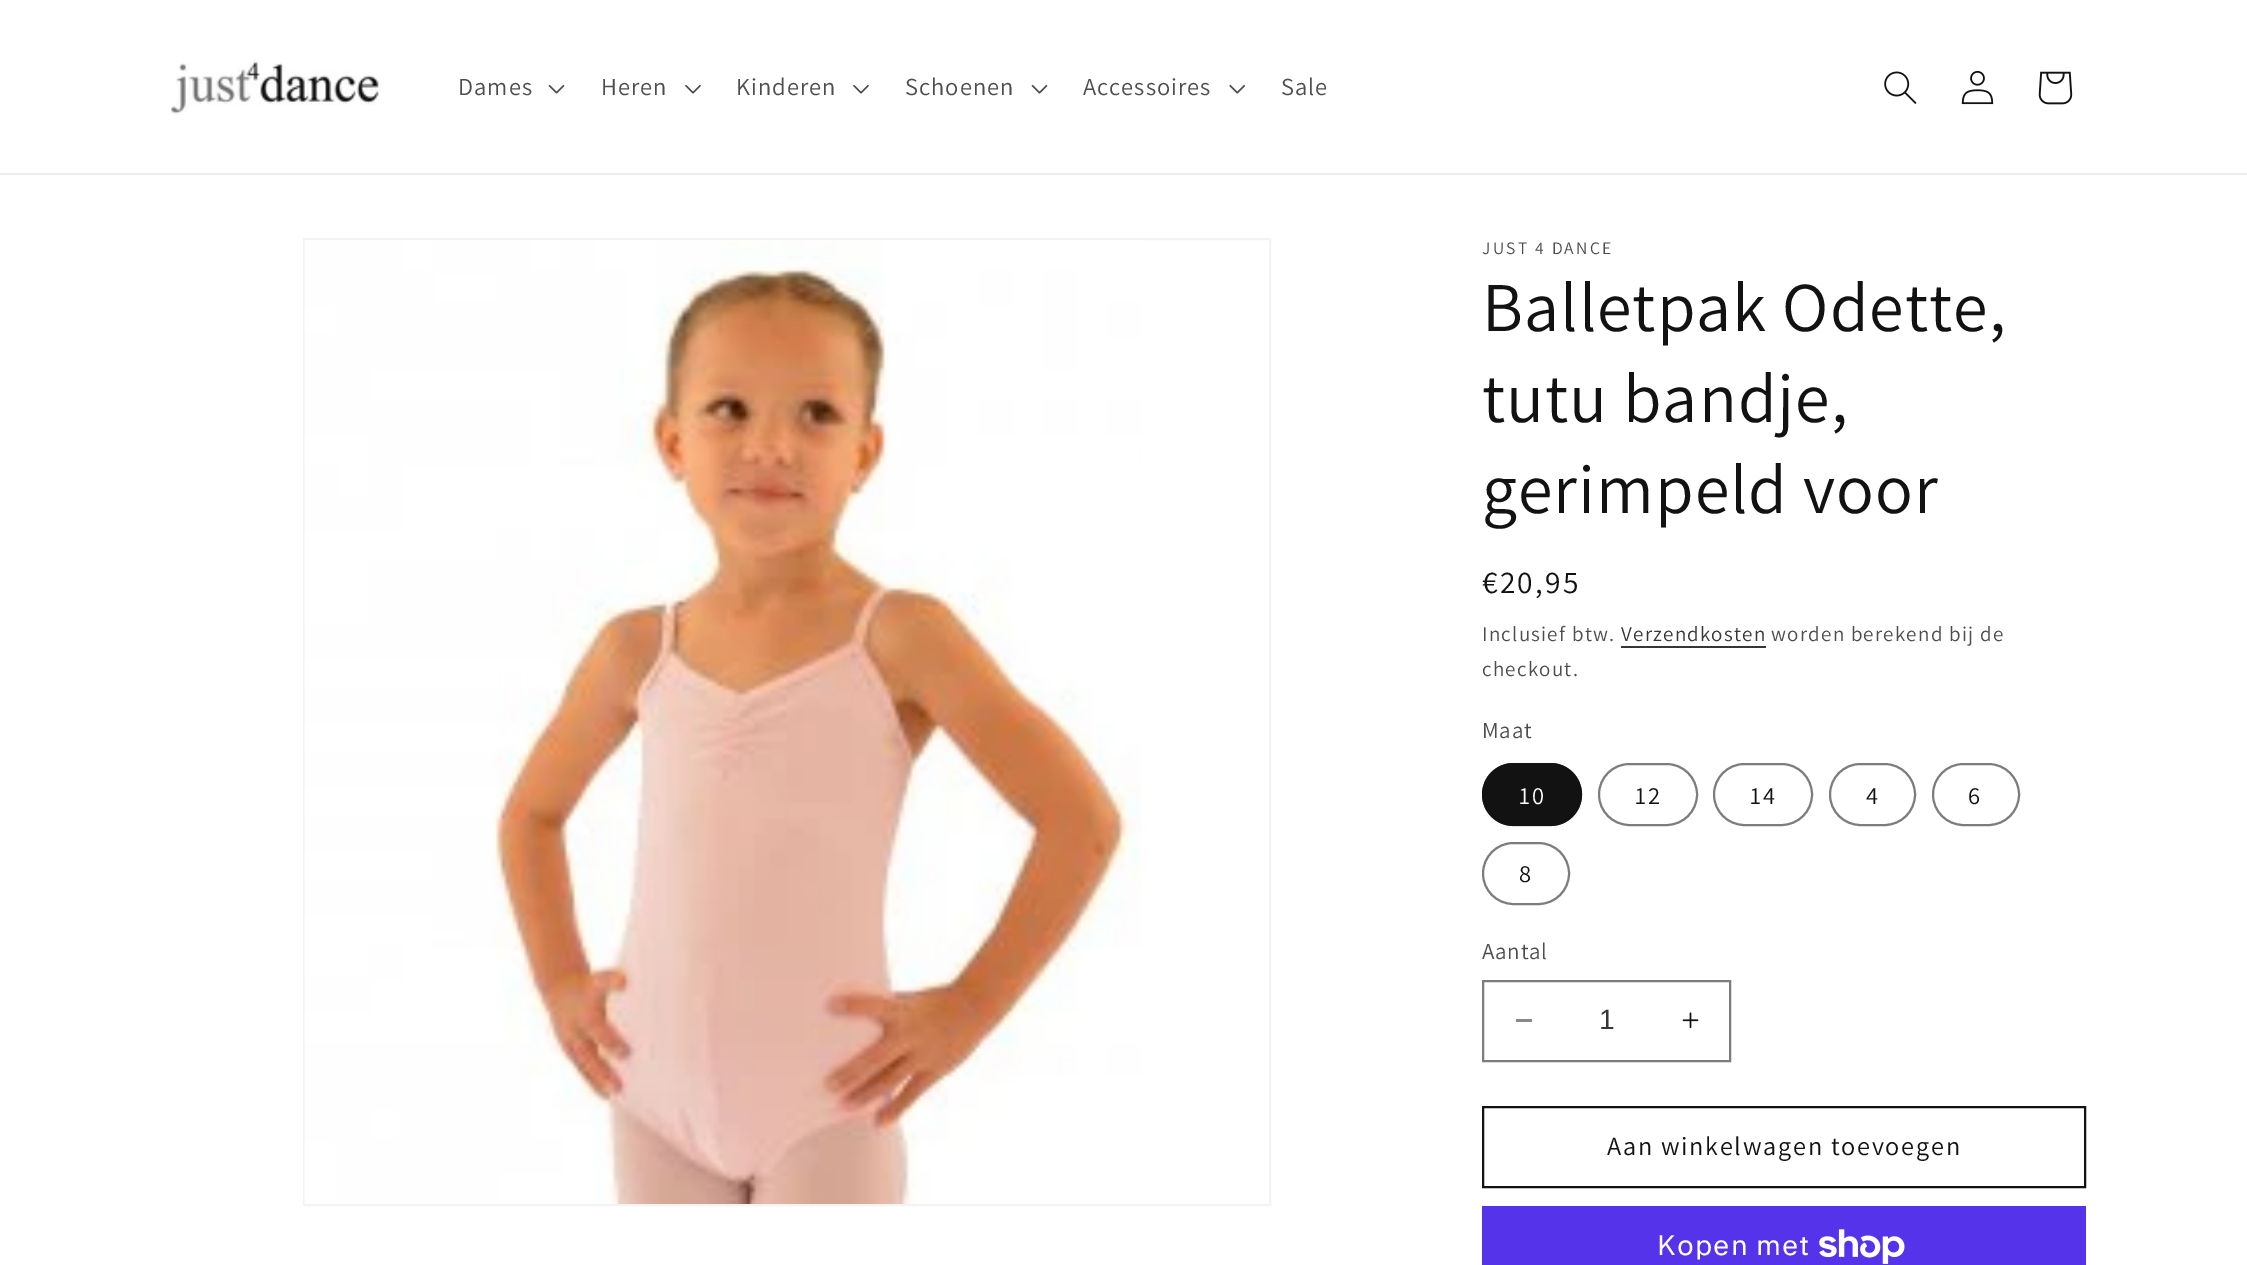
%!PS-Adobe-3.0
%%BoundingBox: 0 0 2247 1265
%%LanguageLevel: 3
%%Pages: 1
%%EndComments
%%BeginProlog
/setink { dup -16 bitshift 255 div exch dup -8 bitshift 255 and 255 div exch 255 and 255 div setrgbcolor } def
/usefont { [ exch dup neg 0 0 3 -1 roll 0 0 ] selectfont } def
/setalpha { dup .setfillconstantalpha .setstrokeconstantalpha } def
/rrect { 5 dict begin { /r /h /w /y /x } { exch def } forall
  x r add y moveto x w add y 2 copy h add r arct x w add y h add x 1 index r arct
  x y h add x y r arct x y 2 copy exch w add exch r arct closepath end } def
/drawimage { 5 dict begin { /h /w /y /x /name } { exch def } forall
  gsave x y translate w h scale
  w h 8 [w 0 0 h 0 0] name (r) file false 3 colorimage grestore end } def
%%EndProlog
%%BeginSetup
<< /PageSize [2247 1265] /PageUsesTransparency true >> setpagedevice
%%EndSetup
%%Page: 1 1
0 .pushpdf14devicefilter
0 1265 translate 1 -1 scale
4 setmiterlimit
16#FFFFFF setink
0 0 2247 1265 rectfill
16#ECECEC setink
0 173 2247 2 rectfill
(img1.raw) 170 58 209 57 drawimage
/Assistant-Regular 24.5 usefont
16#4D4D4D setink
458 95 moveto 1 0 (Dames) ashow
(img2.raw) 548 84 17 10 drawimage
601 95 moveto 1 0 (Heren) ashow
(img3.raw) 685 85 16 9 drawimage
736 95 moveto 1 0 (Kinderen) ashow
(img3.raw) 853 85 16 9 drawimage
905 95 moveto 1 0 (Schoenen) ashow
(img2.raw) 1031 84 17 10 drawimage
1083 95 moveto 1 0 (Accessoires) ashow
(img4.raw) 1229 84 17 10 drawimage
1281 95 moveto 1 0 (Sale) ashow
(img5.raw) 1884 71 33 33 drawimage
(img6.raw) 1961 70 33 35 drawimage
(img7.raw) 2038 71 35 34 drawimage
16#F3F3F3 setink
2 setlinewidth
304 239 966 966 rectstroke
(img8.raw) 304 240 838 964 drawimage
/Assistant-Regular 17.5 usefont
16#4D4D4D setink
1482 254 moveto 2.25 0 (JUST 4 DANCE) ashow
/Assistant-Regular 70 usefont
16#121212 setink
1482 331 moveto 1 0 (Balletpak Odette,) ashow
1482 422 moveto 1 0 (tutu bandje,) ashow
1482 513 moveto 1 0 (gerimpeld voor) ashow
/Assistant-Regular 31.5 usefont
1482 593 moveto 2.25 0 (€20,95) ashow
/Assistant-Regular 21 usefont
16#4D4D4D setink
1482 641 moveto 1.25 0 (Inclusief btw.) ashow
16#363636 setink
1621 641 moveto 1.25 0 (Verzendkosten) ashow
1621 646 145 2 rectfill
16#4D4D4D setink
1771 641 moveto 1.25 0 (worden berekend bij de) ashow
1482 676 moveto 1.25 0 (checkout.) ashow
/Assistant-Regular 23 usefont
1482 738 moveto 0.75 0 (Maat) ashow
16#121212 setink
1482 763 100 63 31.5 rrect fill
0.55 setalpha
1483 764 98 61 30.5 rrect stroke
/Assistant-Regular 24.5 usefont
1 setalpha
16#FFFFFF setink
1519 804 moveto 1.75 0 (10) ashow
16#7D7D7D setink
1599 764 98 61 30.5 rrect stroke
16#121212 setink
1635 804 moveto 1.75 0 (12) ashow
16#7D7D7D setink
1714 764 98 61 30.5 rrect stroke
16#121212 setink
1750 804 moveto 1.75 0 (14) ashow
16#7D7D7D setink
1830 764 85 61 30.5 rrect stroke
16#121212 setink
1866 804 moveto 1.75 0 (4) ashow
16#7D7D7D setink
1933 764 86 61 30.5 rrect stroke
16#121212 setink
1968 804 moveto 1.75 0 (6) ashow
16#7D7D7D setink
1483 843 86 61 30.5 rrect stroke
16#121212 setink
1519 882 moveto 1.75 0 (8) ashow
/Assistant-Regular 23 usefont
16#4D4D4D setink
1482 959 moveto 0.75 0 (Aantal) ashow
16#898989 setink
1516 1019 16 3 rectfill
(img9.raw) 1682 1012 17 17 drawimage
16#7D7D7D setink
1483 981 247 80 rectstroke
/LiberationSans-Regular 28 usefont
16#363636 setink
1599 1029 moveto (1) show
16#121212 setink
1483 1107 602 80 rectstroke
/Assistant-Regular 26.25 usefont
1607 1155 moveto 1.75 0 (Aan winkelwagen toevoegen) ashow
16#5433EB setink
1482 1206 604 59 rectfill
/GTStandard-Regular 28 usefont
16#FFFFFF setink
1657 1255 moveto 1 0 (Kopen met) ashow
(img10.raw) 1819 1229 86 35 drawimage
.poppdf14devicefilter showpage
%%EOF
